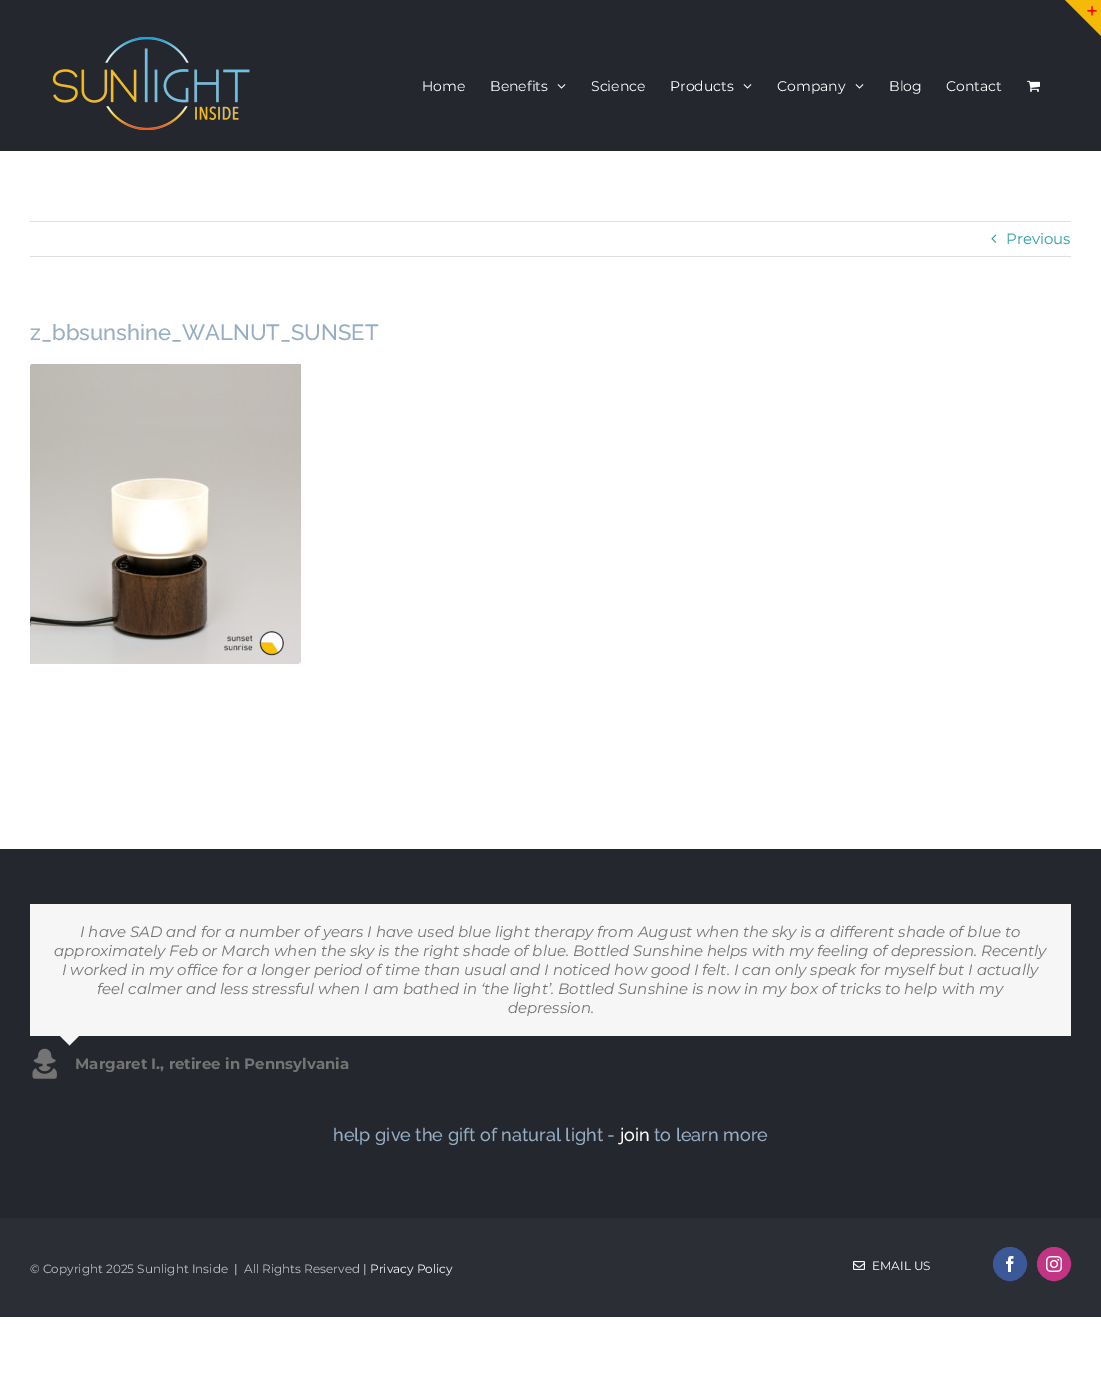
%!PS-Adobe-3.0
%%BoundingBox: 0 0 1101 1385
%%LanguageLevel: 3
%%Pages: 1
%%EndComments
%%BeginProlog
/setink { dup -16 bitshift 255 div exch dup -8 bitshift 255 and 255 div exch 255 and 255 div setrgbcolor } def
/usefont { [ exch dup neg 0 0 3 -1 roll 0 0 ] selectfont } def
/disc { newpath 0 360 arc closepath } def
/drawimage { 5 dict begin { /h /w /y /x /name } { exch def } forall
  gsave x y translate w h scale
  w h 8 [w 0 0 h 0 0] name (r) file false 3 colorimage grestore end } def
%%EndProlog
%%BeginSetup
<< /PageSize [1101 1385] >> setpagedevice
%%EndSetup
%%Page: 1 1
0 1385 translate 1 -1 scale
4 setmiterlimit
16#FFFFFF setink
0 0 1101 1385 rectfill
16#24272D setink
0 0 1101 151 rectfill
16#F4B909 setink
1065 0 moveto 1101 0 lineto 1101 36 lineto closepath fill
(img1.raw) 1087 6 10 10 drawimage
(img2.raw) 52 37 198 93 drawimage
/Montserrat-Regular 14 usefont
16#FFFFFF setink
422 91 moveto (Home) show
490 91 moveto (Benefits) show
(img3.raw) 557 84 9 5 drawimage
591 91 moveto (Science) show
670 91 moveto (Products) show
(img3.raw) 743 84 9 5 drawimage
777 91 moveto (Company) show
(img3.raw) 855 84 9 5 drawimage
889 91 moveto (Blog) show
946 91 moveto (Contact) show
(img4.raw) 1027 80 13 12 drawimage
16#E0DEDE setink
30 221 1041 1 rectfill
30 256 1041 1 rectfill
(img5.raw) 991 234 6 9 drawimage
/Montserrat-Regular 15 usefont
16#2BA0A3 setink
1006 244 moveto (Previous) show
/Raleway-Thin 22 usefont
16#96ADC3 setink
30 340 moveto (z_bbsunshine_WALNUT_SUNSET) show
(img6.raw) 30 364 271 300 drawimage
16#24272D setink
0 849 1101 369 rectfill
16#F6F6F6 setink
30 904 1041 132 rectfill
/Montserrat-Italic 15 usefont
16#747474 setink
[
    [(I have SAD and for a number of years I have used blue light therapy from August when the sky is a different shade of blue to) 80 937]
    [(approximately Feb or March when the sky is the right shade of blue. Bottled Sunshine helps with my feeling of depression. Recently) 54 956]
    [(I worked in my office for a longer period of time than usual and I noticed how good I felt. I can only speak for myself but I actually) 62 975]
    [(feel calmer and less stressful when I am bathed in ‘the light’. Bottled Sunshine is now in my box of tricks to help with my) 97 994]
    [(depression.) 508 1013]
] { aload pop moveto show } forall
16#F6F6F6 setink
69.5 1045.5 moveto 60 1036 lineto 79 1036 lineto closepath fill
(img7.raw) 32 1048 25 31 drawimage
/Montserrat-Bold 15 usefont
16#747474 setink
75 1069 moveto (Margaret I., retiree in Pennsylvania) show
/Raleway-Thin 18 usefont
16#96ADC3 setink
333 1141 moveto (help give the gift of natural light -) show
16#FFFFFF setink
620 1141 moveto (join) show
16#96ADC3 setink
654 1141 moveto (to learn more) show
16#2B2E35 setink
0 1218 1101 99 rectfill
/Montserrat-Regular 12 usefont
16#C1C1C1 setink
30 1273 moveto (© Copyright 2025 Sunlight Inside  |  All Rights Reserved |) show
16#FFFFFF setink
370 1273 moveto (Privacy Policy) show
(img8.raw) 853 1261 12 9 drawimage
872 1270 moveto (EMAIL US) show
16#3B5998 setink
1010 1264 16.5 disc gsave fill grestore
stroke
(img9.raw) 1006 1256 8 16 drawimage
16#C13584 setink
1054 1264 16.5 disc gsave fill grestore
stroke
(img10.raw) 1046 1256 16 16 drawimage
showpage
%%EOF
